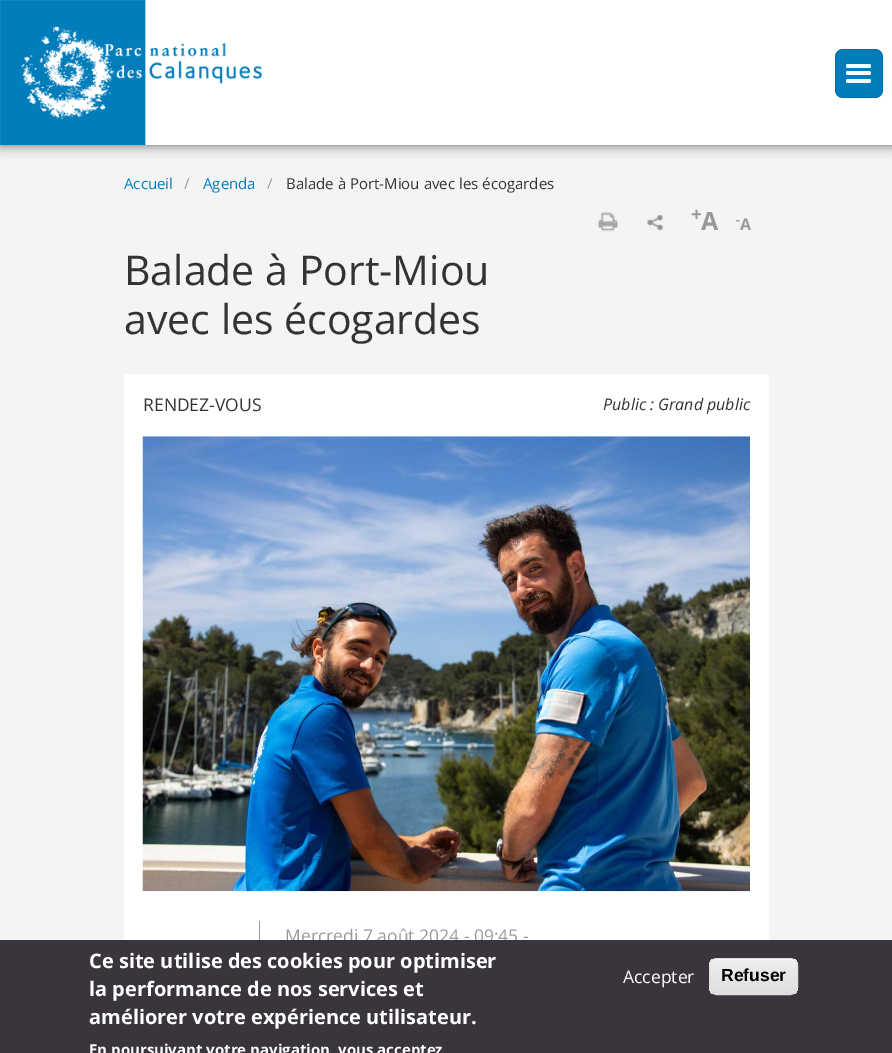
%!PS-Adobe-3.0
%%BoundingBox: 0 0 892 1053
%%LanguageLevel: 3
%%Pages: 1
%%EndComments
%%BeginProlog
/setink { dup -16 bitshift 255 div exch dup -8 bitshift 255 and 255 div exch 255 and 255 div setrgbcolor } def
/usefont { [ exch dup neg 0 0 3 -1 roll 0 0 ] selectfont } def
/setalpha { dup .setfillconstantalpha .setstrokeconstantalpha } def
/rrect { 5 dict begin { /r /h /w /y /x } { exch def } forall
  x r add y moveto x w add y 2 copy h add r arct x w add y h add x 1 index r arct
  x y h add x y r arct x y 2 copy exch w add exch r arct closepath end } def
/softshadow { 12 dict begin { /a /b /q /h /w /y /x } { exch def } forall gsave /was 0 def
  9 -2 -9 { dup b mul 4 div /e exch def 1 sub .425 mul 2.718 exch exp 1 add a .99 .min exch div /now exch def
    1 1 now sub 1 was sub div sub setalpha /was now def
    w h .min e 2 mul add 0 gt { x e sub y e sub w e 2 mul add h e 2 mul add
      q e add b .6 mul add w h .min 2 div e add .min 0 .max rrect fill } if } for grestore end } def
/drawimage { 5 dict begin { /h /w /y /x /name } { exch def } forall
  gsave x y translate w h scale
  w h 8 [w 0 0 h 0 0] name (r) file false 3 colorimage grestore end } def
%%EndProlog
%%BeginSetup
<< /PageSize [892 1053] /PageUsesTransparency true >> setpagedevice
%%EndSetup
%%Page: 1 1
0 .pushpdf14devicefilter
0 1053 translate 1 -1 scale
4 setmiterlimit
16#F4F4F4 setink
0 0 892 1053 rectfill
16#000000 setink
0 0 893 145 0 6 0.6 softshadow
16#FFFFFF setink
262 0 630 145 rectfill
(img1.raw) 0 0 262 145 drawimage
16#007DBA setink
835 49 48 49 8 rrect fill
0.1 setalpha
16#000000 setink
835.5 49.5 47 48 7.5 rrect stroke
1 setalpha
16#FFFFFF setink
846 64 25 4 2 rrect fill
846 71 25 4 2 rrect fill
846 79 25 4 2 rrect fill
/OpenSans-Regular 15 usefont
16#007DBA setink
124 189 moveto (Accueil) show
16#999999 setink
184 189 moveto (/) show
16#007DBA setink
203 189 moveto (Agenda) show
16#999999 setink
267 189 moveto (/) show
16#333333 setink
286 189 moveto (Balade à Port-Miou avec les écogardes) show
(img2.raw) 596 212 22 20 drawimage
(img3.raw) 647 214 16 17 drawimage
/OpenSans-Bold 19 usefont
16#999999 setink
691 221 moveto (+) show
/OpenSans-Bold 25 usefont
701 230 moveto (A) show
/OpenSans-Bold 12 usefont
736 224 moveto (-) show
/OpenSans-Bold 16 usefont
740 230 moveto (A) show
/OpenSans-Regular 41 usefont
16#333333 setink
124 285 moveto (Balade à Port-Miou) show
124 334 moveto (avec les écogardes) show
16#FFFFFF setink
124 374 645 566 rectfill
/OpenSans-Regular 17.5 usefont
16#333333 setink
143 411 moveto (RENDEZ-VOUS) show
/OpenSans-Italic 16 usefont
603 410 moveto (Public : Grand public) show
(img4.raw) 142 436 608 456 drawimage
16#999999 setink
259 921 1 19 rectfill
/OpenSans-Regular 17.5 usefont
285 942 moveto (Mercredi 7 août 2024 - 09:45 -) show
16#3A353C setink
0 940 892 113 rectfill
/OpenSans-Bold 20 usefont
16#FFFFFF setink
[
    [(Ce site utilise des cookies pour optimiser) 89 968]
    [(la performance de nos services et) 89 996]
    [(améliorer votre expérience utilisateur.) 89 1024]
] { aload pop moveto show } forall
/OpenSans-Bold 15 usefont
89 1055 moveto (En poursuivant votre navigation, vous acceptez) show
/OpenSans-Regular 17.5 usefont
623 983 moveto (Accepter) show
gsave
709 958 89 37 8 rrect clip newpath
gsave 709 959 moveto 798 959 lineto 798 994 lineto 709 994 lineto closepath clip newpath
<< /ShadingType 2 /ColorSpace /DeviceRGB /Coords [753 959 753 994] /Extend [true true] /Function << /FunctionType 3 /Domain [0 1] /Functions [<< /FunctionType 2 /Domain [0 1] /C0 [0.929 0.929 0.929] /C1 [0.929 0.929 0.929] /N 1 >> << /FunctionType 2 /Domain [0 1] /C0 [0.929 0.929 0.929] /C1 [0.875 0.875 0.875] /N 1 >>] /Bounds [0.05] /Encode [0 1 0 1] >> >> shfill grestore
grestore
716 960 moveto 790 960 lineto 793 960 796 963 796 966 curveto 796 956 784 959 778 959 curveto 728 959 lineto 722 959 710 956 710 966 curveto 710 963 713 960 716 960 curveto closepath fill
16#DCDCDC setink
709.5 958.5 88 36 7.5 rrect stroke
/LiberationSans-Bold 17.5 usefont
16#000000 setink
721 981 moveto (Refuser) show
.poppdf14devicefilter showpage
%%EOF
